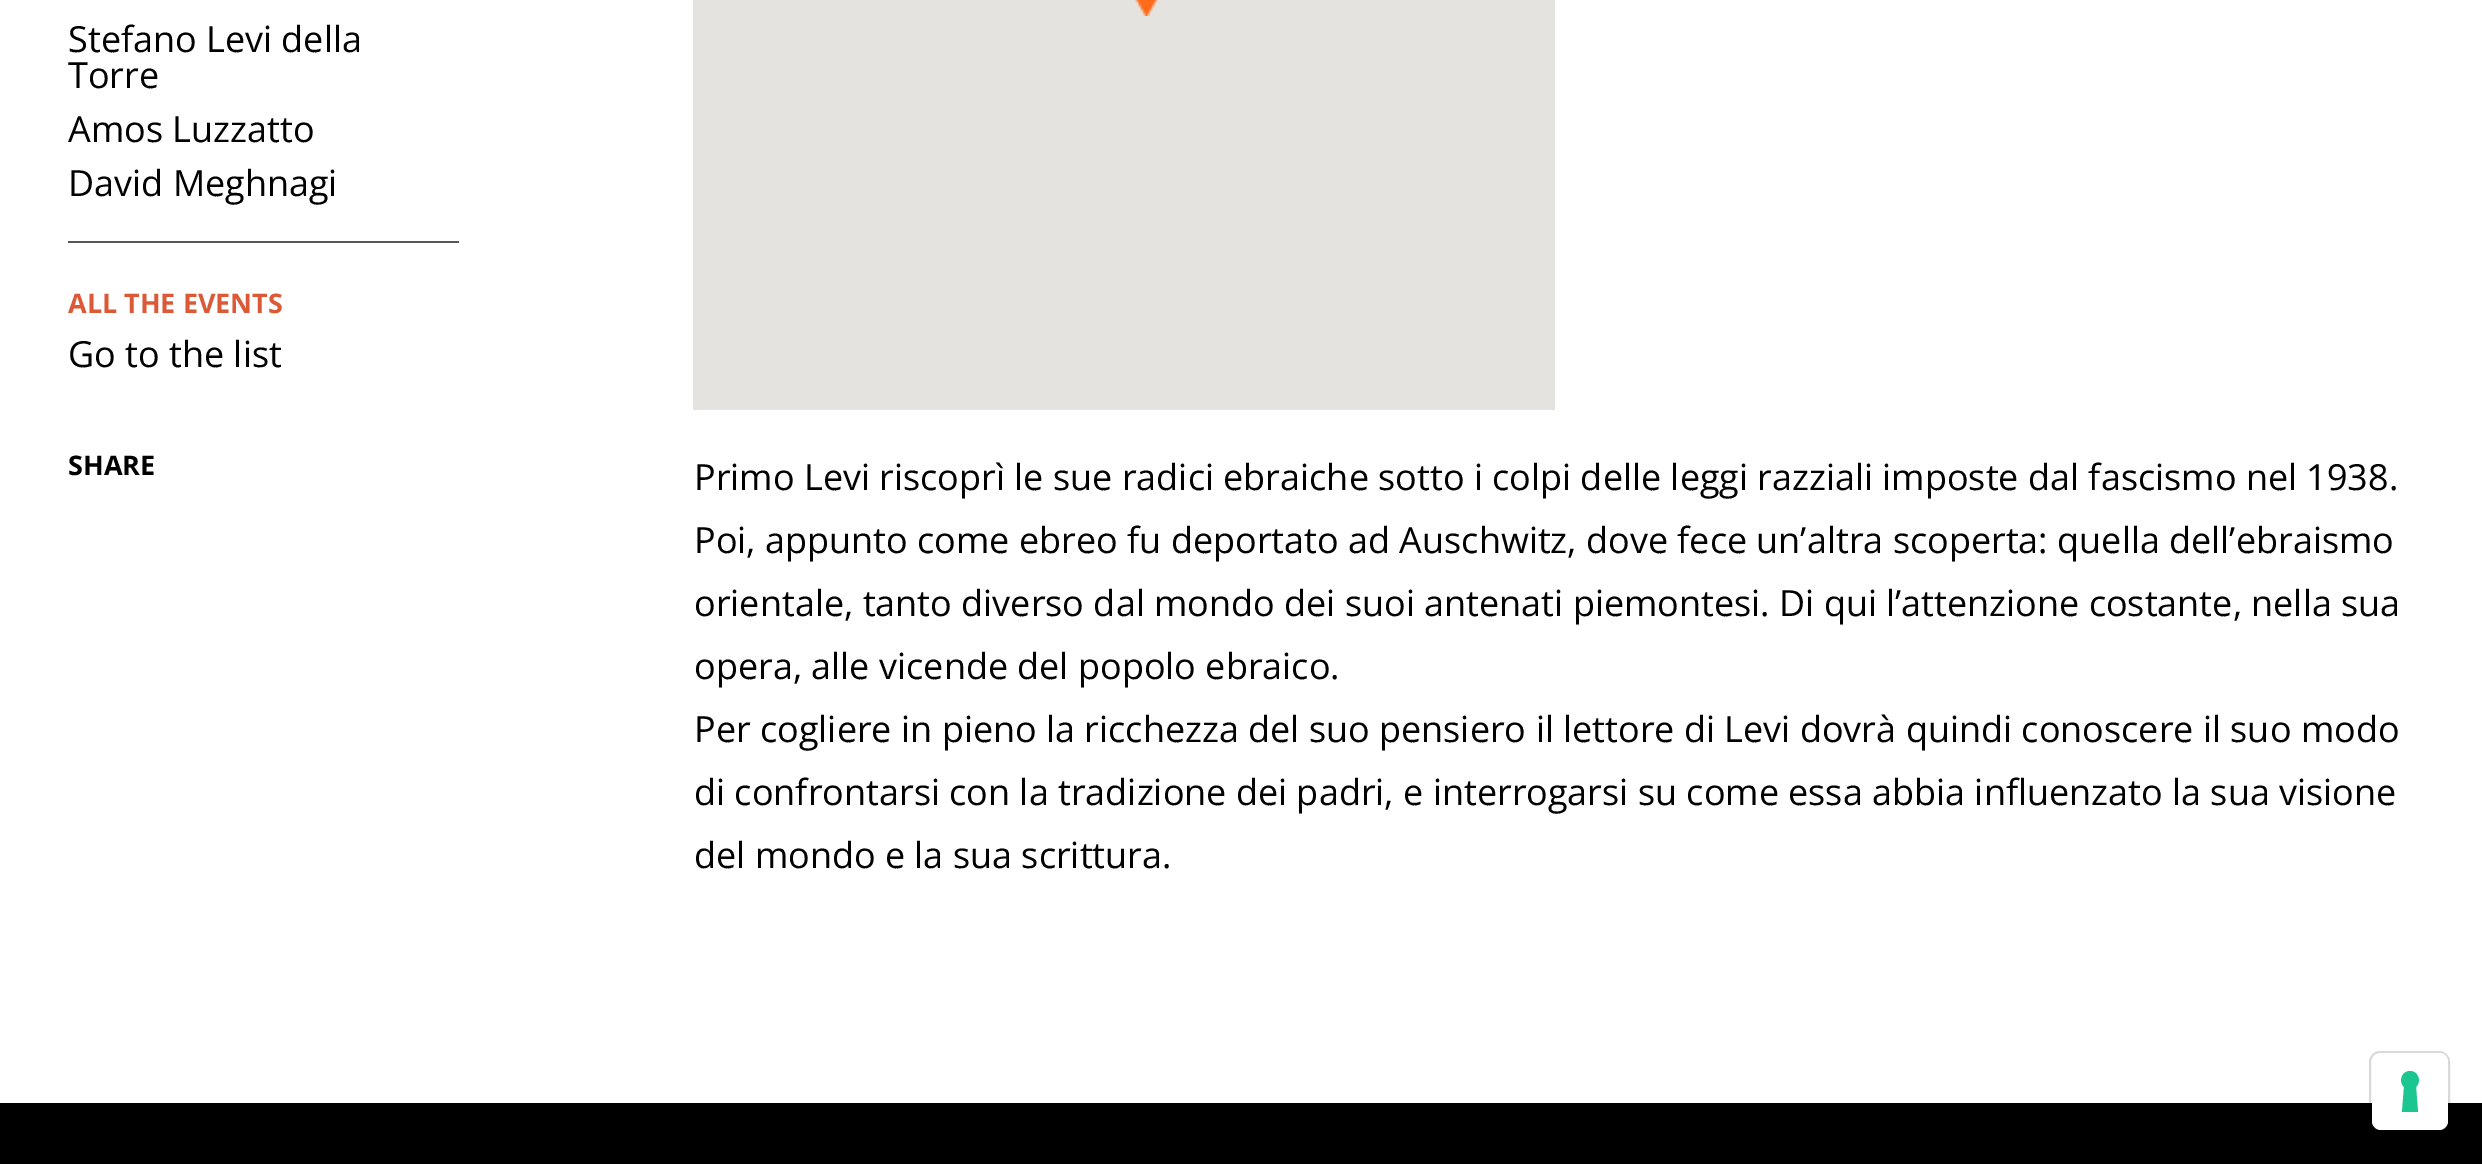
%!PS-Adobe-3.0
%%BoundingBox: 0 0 2482 1164
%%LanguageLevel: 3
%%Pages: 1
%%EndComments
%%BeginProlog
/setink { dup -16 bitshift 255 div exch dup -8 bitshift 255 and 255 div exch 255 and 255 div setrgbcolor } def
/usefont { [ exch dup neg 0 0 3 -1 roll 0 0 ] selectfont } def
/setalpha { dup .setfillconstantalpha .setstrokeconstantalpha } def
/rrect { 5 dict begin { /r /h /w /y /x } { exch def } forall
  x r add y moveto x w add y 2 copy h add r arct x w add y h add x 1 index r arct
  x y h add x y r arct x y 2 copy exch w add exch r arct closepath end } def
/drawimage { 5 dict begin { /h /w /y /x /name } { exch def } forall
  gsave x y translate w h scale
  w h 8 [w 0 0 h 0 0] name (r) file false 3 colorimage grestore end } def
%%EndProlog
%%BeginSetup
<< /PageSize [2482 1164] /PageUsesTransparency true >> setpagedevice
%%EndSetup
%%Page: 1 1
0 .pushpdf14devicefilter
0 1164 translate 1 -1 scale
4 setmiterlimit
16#FFFFFF setink
0 0 2482 1164 rectfill
/OpenSans-Regular 36 usefont
16#000000 setink
[
    [(Stefano Levi della) 68 52]
    [(Torre) 68 88]
    [(Amos Luzzatto) 68 142]
    [(David Meghnagi) 68 196]
] { aload pop moveto show } forall
16#575756 setink
68 241 391 2 rectfill
/OpenSans-Bold 27 usefont
16#DB5936 setink
68 313 moveto (ALL THE EVENTS) show
/OpenSans-Regular 36 usefont
16#000000 setink
68 367 moveto (Go to the list) show
/OpenSans-Bold 27 usefont
68 475 moveto (SHARE) show
16#E5E3DF setink
693 0 862 410 rectfill
(img1.raw) 1134 0 25 16 drawimage
/OpenSans-Regular 36 usefont
16#000000 setink
[
    [(Primo Levi riscoprì le sue radici ebraiche sotto i colpi delle leggi razziali imposte dal fascismo nel 1938.) 694 490]
    [(Poi, appunto come ebreo fu deportato ad Auschwitz, dove fece un’altra scoperta: quella dell’ebraismo) 694 553]
    [(orientale, tanto diverso dal mondo dei suoi antenati piemontesi. Di qui l’attenzione costante, nella sua) 694 616]
    [(opera, alle vicende del popolo ebraico.) 694 679]
    [(Per cogliere in pieno la ricchezza del suo pensiero il lettore di Levi dovrà quindi conoscere il suo modo) 694 742]
    [(di confrontarsi con la tradizione dei padri, e interrogarsi su come essa abbia influenzato la sua visione) 694 805]
    [(del mondo e la sua scrittura.) 694 868]
] { aload pop moveto show } forall
0 1103 2482 61 rectfill
0.15 setalpha
2 setlinewidth
2370 1052 79 79 10 rrect stroke
1 setalpha
16#FFFFFF setink
2372 1053 76 77 9 rrect fill
16#1CC691 setink
2410 1071 moveto 2418 1071 2422 1081 2416 1087 curveto 2418 1112 lineto 2402 1112 lineto 2404 1087 lineto 2398 1081 2402 1071 2410 1071 curveto closepath eofill
.poppdf14devicefilter showpage
%%EOF
